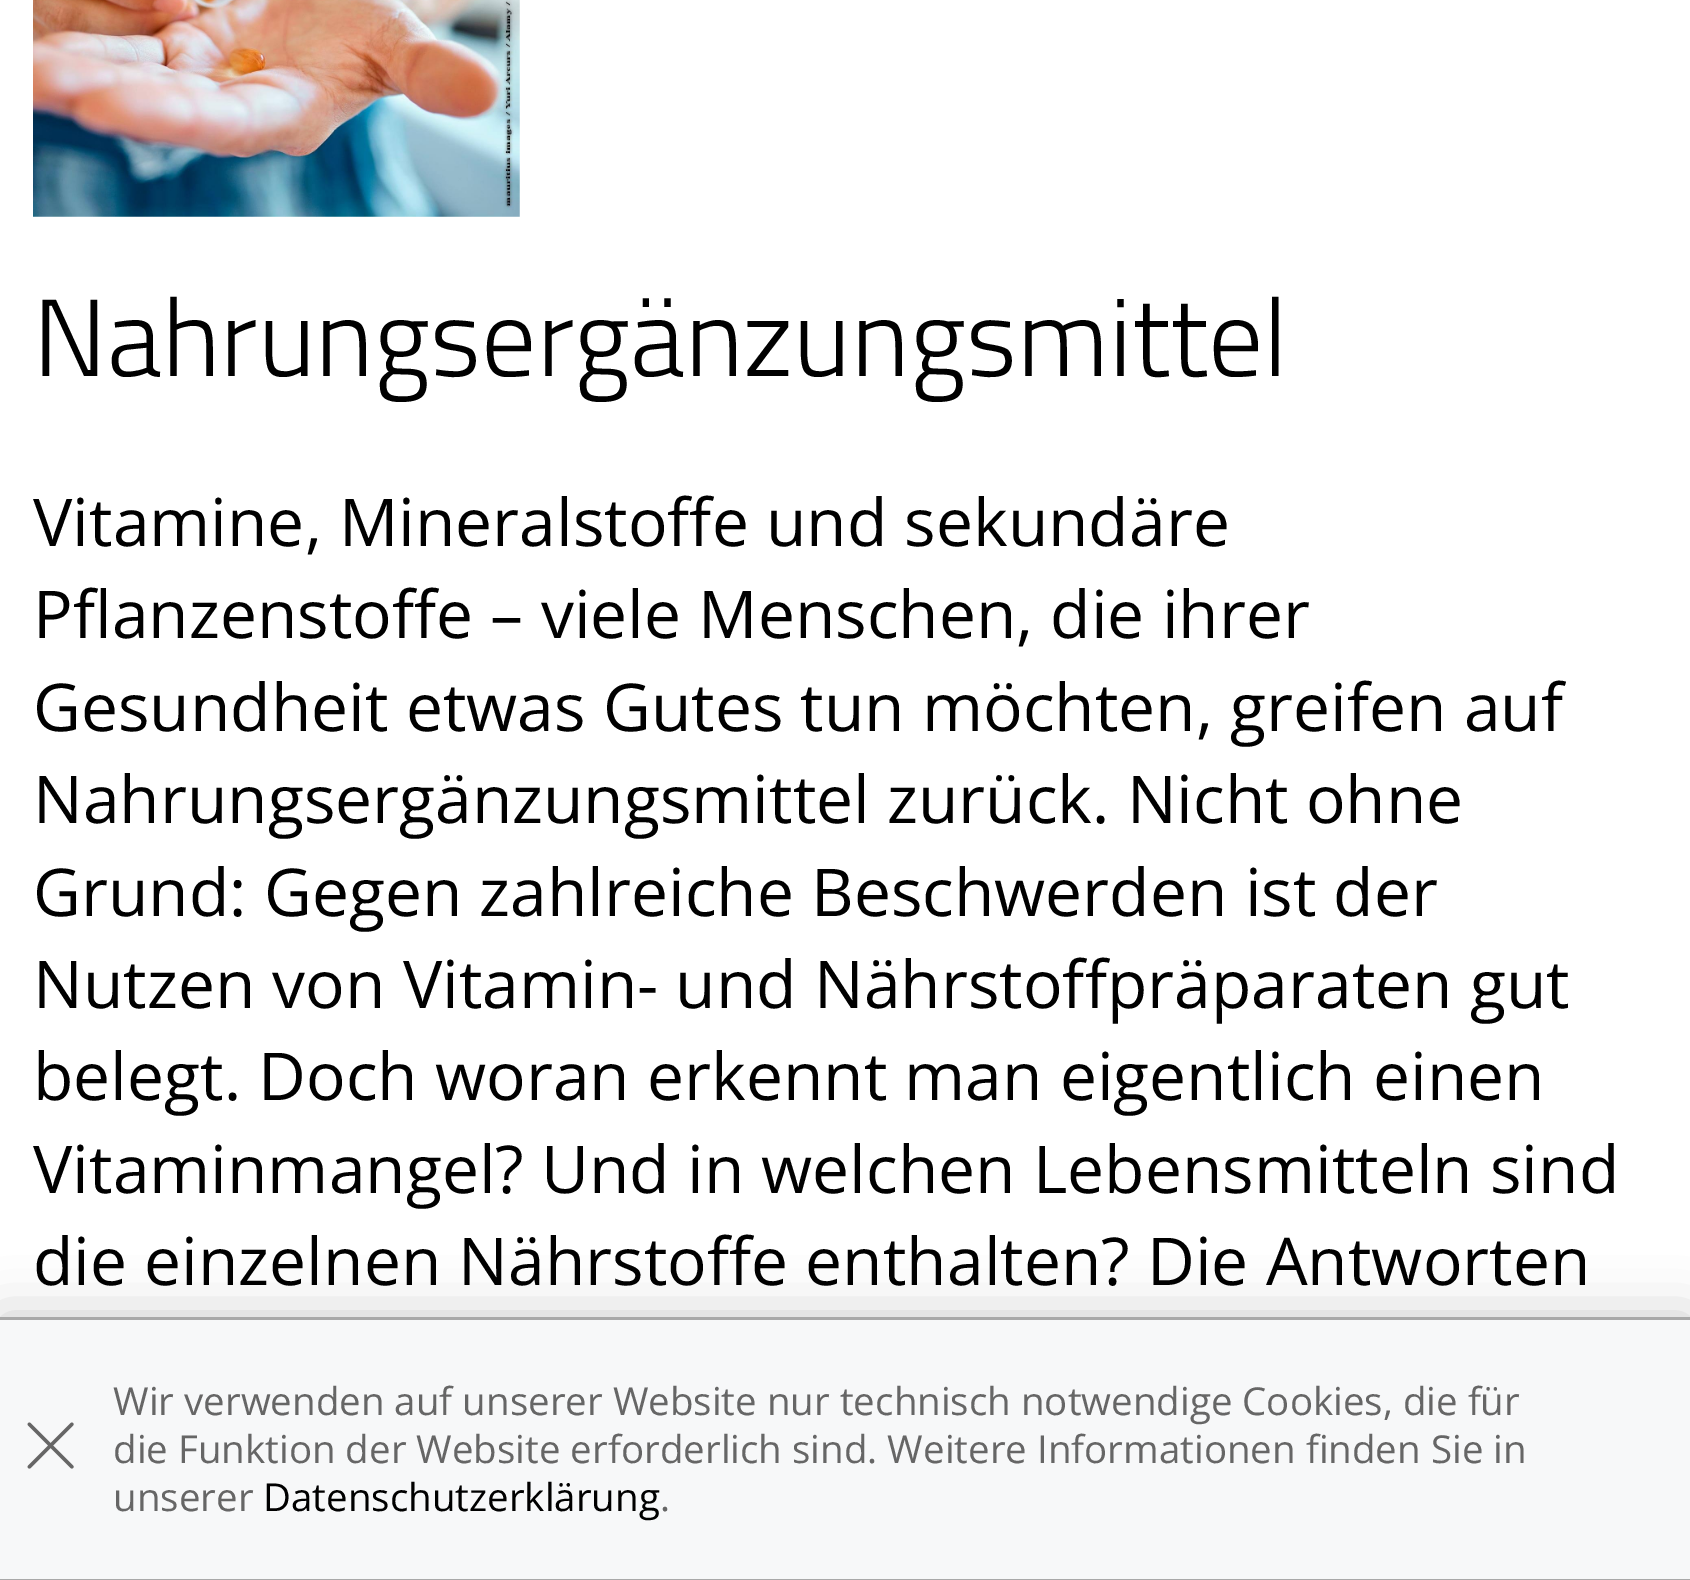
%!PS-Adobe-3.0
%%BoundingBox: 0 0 1690 1580
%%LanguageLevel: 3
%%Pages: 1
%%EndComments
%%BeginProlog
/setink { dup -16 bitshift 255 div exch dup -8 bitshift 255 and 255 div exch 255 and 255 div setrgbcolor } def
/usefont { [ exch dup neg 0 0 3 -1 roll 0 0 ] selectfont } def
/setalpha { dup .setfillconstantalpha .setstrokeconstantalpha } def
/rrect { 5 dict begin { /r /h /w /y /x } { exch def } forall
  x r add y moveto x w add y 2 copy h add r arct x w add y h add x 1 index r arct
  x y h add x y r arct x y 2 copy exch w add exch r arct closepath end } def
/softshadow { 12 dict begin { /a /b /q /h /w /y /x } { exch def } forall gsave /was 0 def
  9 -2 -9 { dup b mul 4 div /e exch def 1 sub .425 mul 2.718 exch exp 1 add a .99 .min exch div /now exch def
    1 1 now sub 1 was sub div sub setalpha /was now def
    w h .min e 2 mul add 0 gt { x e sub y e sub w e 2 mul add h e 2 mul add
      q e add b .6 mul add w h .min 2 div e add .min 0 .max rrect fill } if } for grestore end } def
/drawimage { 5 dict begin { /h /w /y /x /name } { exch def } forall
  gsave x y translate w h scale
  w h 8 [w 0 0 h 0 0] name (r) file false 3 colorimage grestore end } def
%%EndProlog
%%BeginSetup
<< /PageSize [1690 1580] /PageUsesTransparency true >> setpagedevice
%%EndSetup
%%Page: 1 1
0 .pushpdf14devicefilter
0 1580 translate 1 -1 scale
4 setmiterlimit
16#FFFFFF setink
0 0 1690 1580 rectfill
(img1.raw) 33 0 487 217 drawimage
/TitilliumWeb-Light 110 usefont
16#000000 setink
33 376 moveto (Nahrungsergänzungsmittel) show
/OpenSans-Regular 66 usefont
[
    [(Vitamine, Mineralstoffe und sekundäre) 33 546]
    [(Pflanzenstoffe – viele Menschen, die ihrer) 33 638]
    [(Gesundheit etwas Gutes tun möchten, greifen auf) 33 731]
    [(Nahrungsergänzungsmittel zurück. Nicht ohne) 33 823]
    [(Grund: Gegen zahlreiche Beschwerden ist der) 33 916]
    [(Nutzen von Vitamin- und Nährstoffpräparaten gut) 33 1008]
    [(belegt. Doch woran erkennt man eigentlich einen) 33 1100]
    [(Vitaminmangel? Und in welchen Lebensmitteln sind) 33 1193]
    [(die einzelnen Nährstoffe enthalten? Die Antworten) 33 1285]
] { aload pop moveto show } forall
0 1317 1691 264 0 27.5 0.2 softshadow
[
    [0 1320 1690 259 16#F7F8F9]
    [0 1317 1690 3 16#A9A9A9]
    [0 1579 1690 1 16#A9A9A9]
] { aload pop setink rectfill } forall
(img2.raw) 27 1422 47 47 drawimage
/OpenSans-Regular 38.5 usefont
16#666666 setink
[
    [(Wir verwenden auf unserer Website nur technisch notwendige Cookies, die für) 113 1415]
    [(die Funktion der Website erforderlich sind. Weitere Informationen finden Sie in) 113 1463]
    [(unserer) 113 1511]
] { aload pop moveto show } forall
16#000000 setink
263 1511 moveto (Datenschutzerklärung) show
16#666666 setink
660 1511 moveto (.) show
.poppdf14devicefilter showpage
%%EOF
